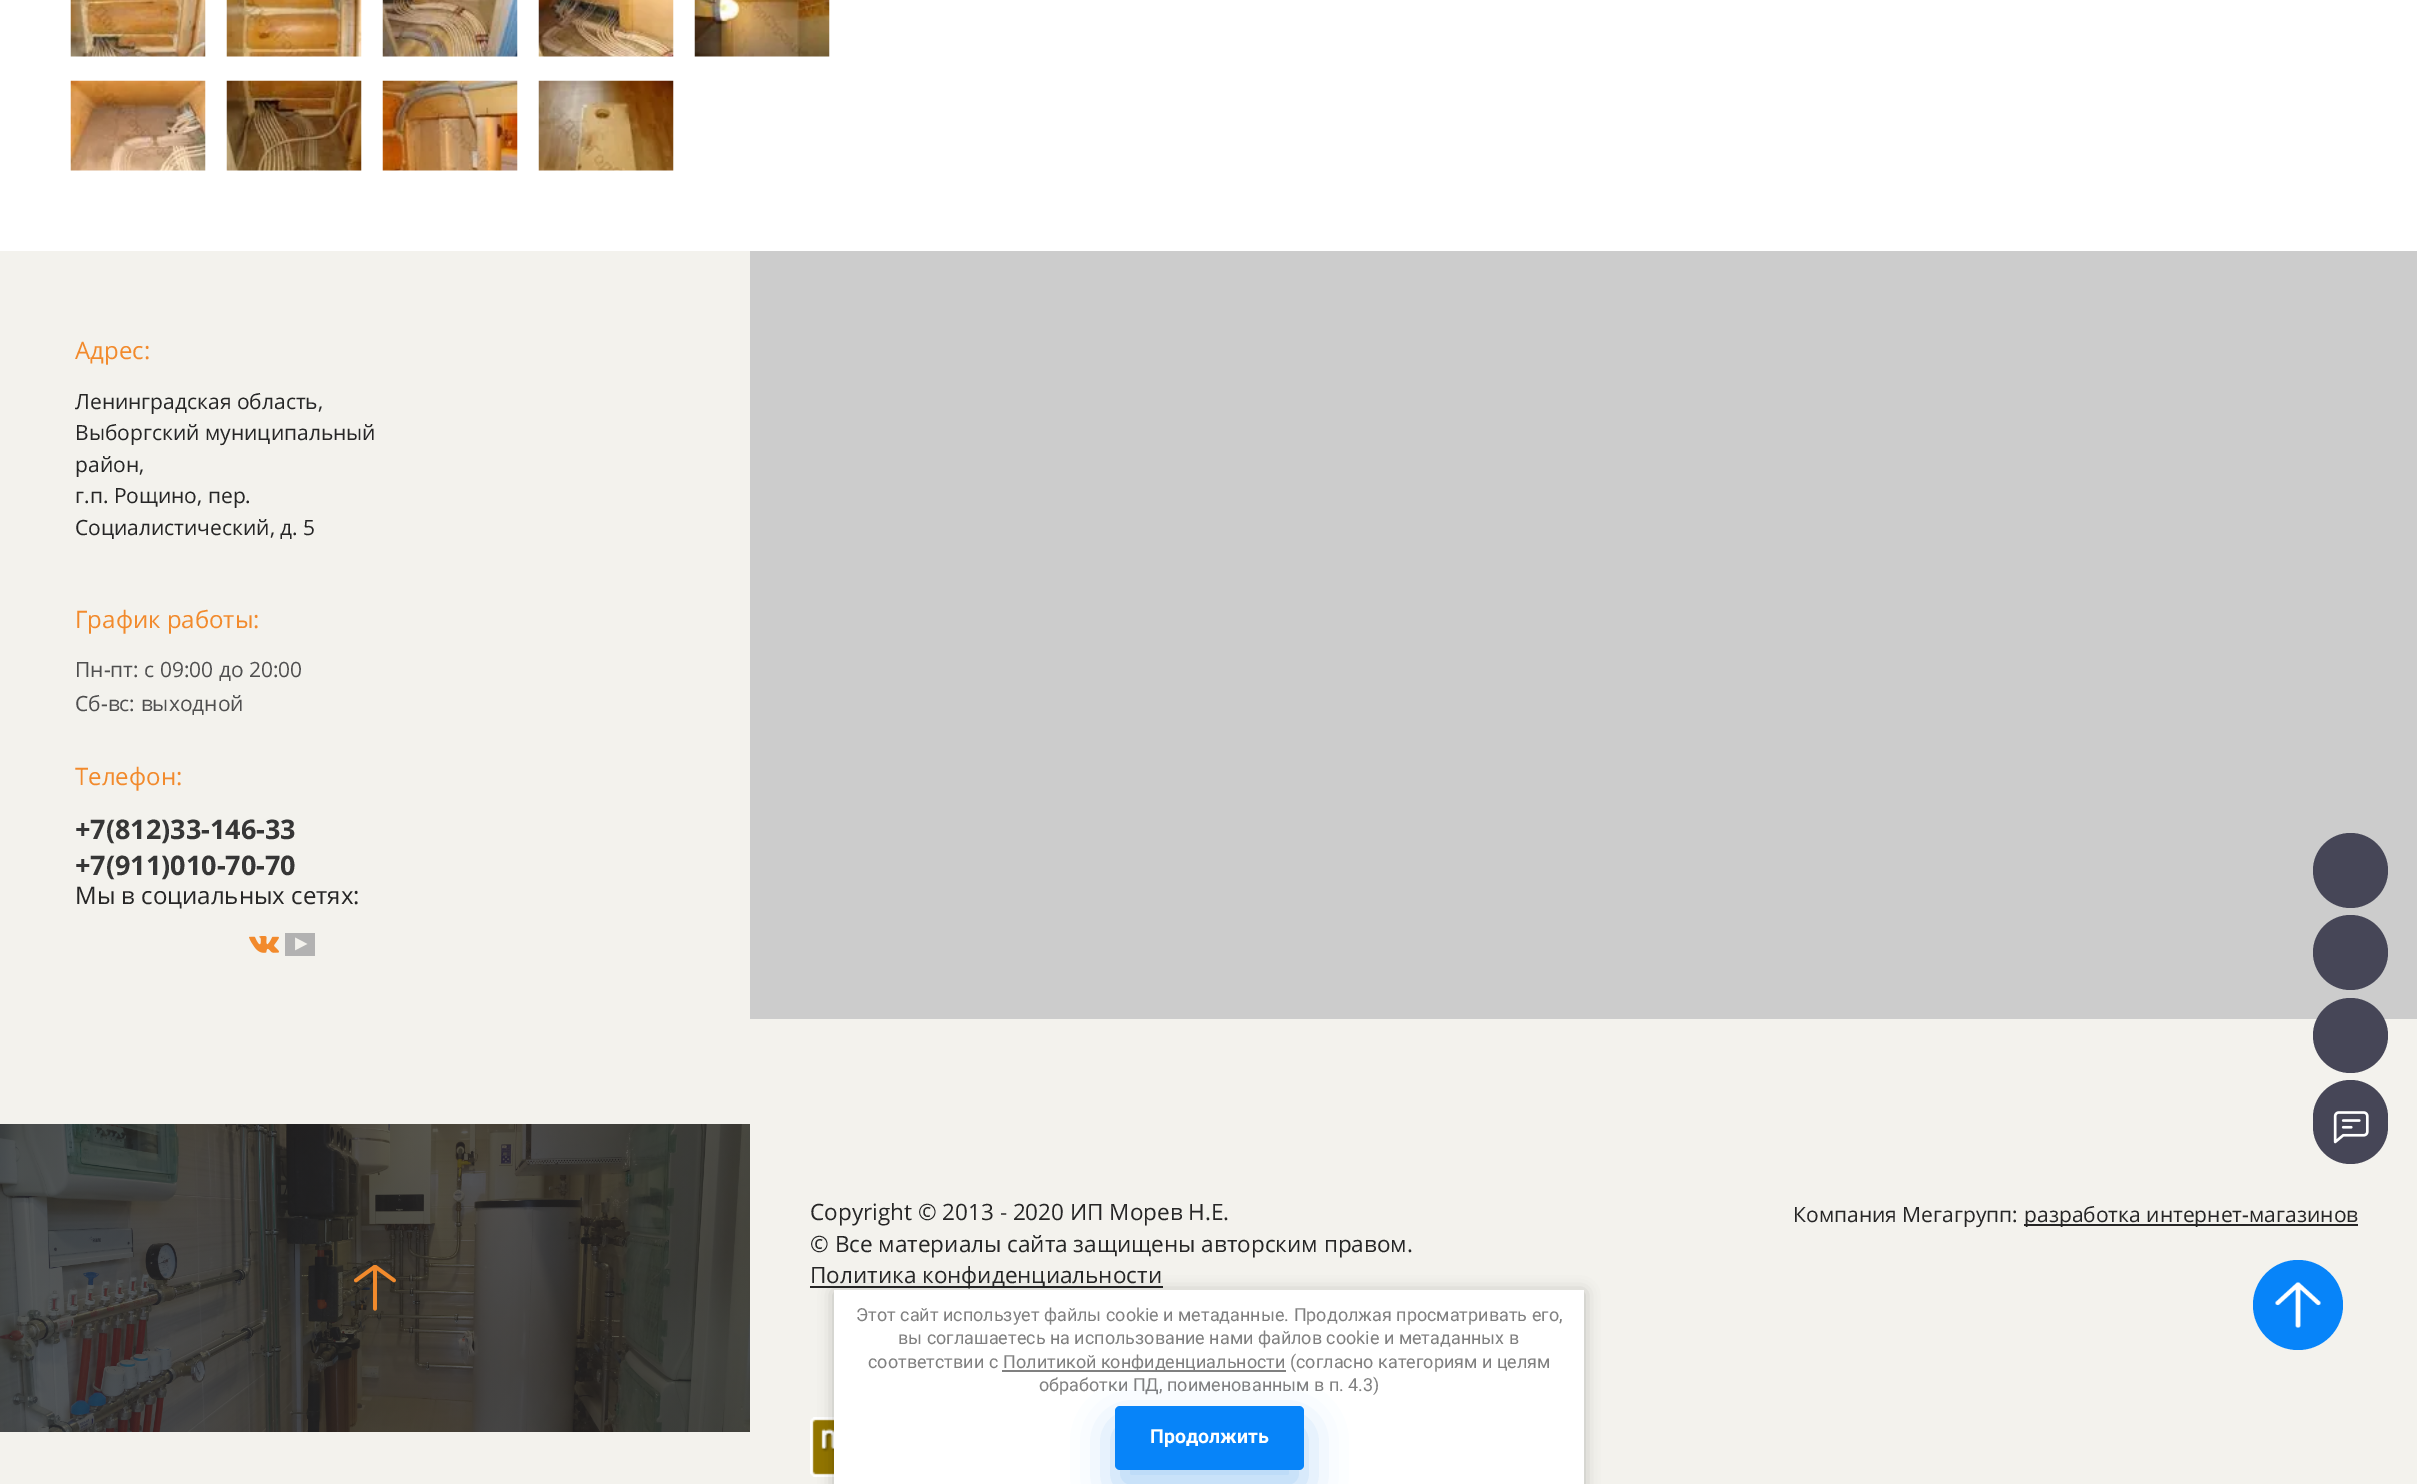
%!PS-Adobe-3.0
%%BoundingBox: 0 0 2417 1484
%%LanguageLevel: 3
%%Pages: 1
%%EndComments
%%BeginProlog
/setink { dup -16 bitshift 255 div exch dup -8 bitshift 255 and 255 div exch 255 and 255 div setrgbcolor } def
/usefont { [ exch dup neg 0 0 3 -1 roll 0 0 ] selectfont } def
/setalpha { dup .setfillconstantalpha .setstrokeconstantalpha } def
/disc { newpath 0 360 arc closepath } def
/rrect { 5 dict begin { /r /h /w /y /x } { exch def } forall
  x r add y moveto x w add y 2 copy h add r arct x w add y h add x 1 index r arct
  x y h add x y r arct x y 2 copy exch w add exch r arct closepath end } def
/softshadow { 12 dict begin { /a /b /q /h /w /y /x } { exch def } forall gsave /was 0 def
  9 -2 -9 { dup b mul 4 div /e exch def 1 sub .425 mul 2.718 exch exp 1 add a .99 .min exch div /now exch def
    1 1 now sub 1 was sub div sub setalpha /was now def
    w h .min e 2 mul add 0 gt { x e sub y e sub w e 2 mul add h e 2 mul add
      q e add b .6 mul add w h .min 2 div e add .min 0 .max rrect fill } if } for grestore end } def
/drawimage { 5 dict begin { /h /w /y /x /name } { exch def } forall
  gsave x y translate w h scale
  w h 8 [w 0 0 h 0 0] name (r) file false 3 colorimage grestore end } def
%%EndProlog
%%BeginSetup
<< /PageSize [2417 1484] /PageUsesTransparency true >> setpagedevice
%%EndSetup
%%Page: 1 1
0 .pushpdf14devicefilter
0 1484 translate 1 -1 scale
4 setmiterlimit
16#FFFFFF setink
0 0 2417 1484 rectfill
(img1.raw) 70 0 136 57 drawimage
(img2.raw) 226 0 136 57 drawimage
(img3.raw) 382 0 136 57 drawimage
(img4.raw) 538 0 136 57 drawimage
(img5.raw) 694 0 136 57 drawimage
(img6.raw) 70 80 136 91 drawimage
(img7.raw) 226 80 136 91 drawimage
(img8.raw) 382 80 136 91 drawimage
(img9.raw) 538 80 136 91 drawimage
16#F3F2ED setink
0 251 2417 1233 rectfill
16#0784F9 setink
2298 1305 45 disc fill
(img10.raw) 2275 1282 46 46 drawimage
/OpenSans-Regular 24 usefont
16#F28A2C setink
75 359 moveto (Адрес:) show
/OpenSans-Regular 21 usefont
16#262626 setink
[
    [(Ленинградская область,) 75 409]
    [(Выборгский муниципальный) 75 440]
    [(район,) 75 472]
    [(г.п. Рощино, пер.) 75 503]
    [(Социалистический, д. 5) 75 535]
] { aload pop moveto show } forall
/OpenSans-Regular 24 usefont
16#F28A2C setink
75 628 moveto (График работы:) show
/OpenSans-Regular 21 usefont
16#4F4F4F setink
75 677 moveto (Пн-пт: с 09:00 до 20:00) show
75 711 moveto (Сб-вс: выходной) show
/OpenSans-Regular 24 usefont
16#F28A2C setink
75 785 moveto (Телефон:) show
/OpenSans-Bold 27 usefont
16#363636 setink
75 839 moveto (+7\(812\)33-146-33) show
75 875 moveto (+7\(911\)010-70-70) show
/OpenSans-Regular 24 usefont
16#262626 setink
75 904 moveto (Мы в социальных сетях:) show
(img11.raw) 249 936 30 17 drawimage
(img12.raw) 285 933 30 23 drawimage
16#CCCCCC setink
750 251 1667 768 rectfill
(img13.raw) 0 1124 750 308 drawimage
(img14.raw) 354 1265 42 46 drawimage
/OpenSans-Regular 22.5 usefont
16#262626 setink
810 1220 moveto (Copyright © 2013 - 2020 ИП Морев Н.Е.) show
810 1252 moveto (© Все материалы сайта защищены авторским правом.) show
810 1286 353 2 rectfill
810 1283 moveto (Политика конфиденциальности) show
(img15.raw) 810 1417 24 60 drawimage
/OpenSans-Regular 21 usefont
1793 1222 moveto (Компания Мегагрупп:) show
2024 1224 334 2 rectfill
2024 1222 moveto (разработка интернет-магазинов) show
16#464657 setink
2350.5 870.5 37.5 disc fill
2350.5 952.5 37.5 disc fill
2350.5 1035.5 37.5 disc fill
2350.5 1117.5 37.5 disc fill
2350.5 1126.5 37.5 disc fill
(img16.raw) 2333 1111 36 33 drawimage
16#000000 setink
834 1292 750 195 0 7.5 0.23 softshadow
16#FFFFFF setink
834 1290 750 194 rectfill
/Roboto-Regular 18 usefont
16#808080 setink
[
    [(Этот сайт использует файлы cookie и метаданные. Продолжая просматривать его,) 856 1321]
    [(вы соглашаетесь на использование нами файлов cookie и метаданных в) 898 1344]
    [(соответствии с) 868 1368]
] { aload pop moveto show } forall
1002 1370 284 2 rectfill
1003 1368 moveto (Политикой конфиденциальности \(согласно категориям и целям) show
1039 1391 moveto (обработки ПД, поименованным в п. 4.3\)) show
16#258AE6 setink
1115 1425 189 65 5 20 0.35 softshadow
16#0784F9 setink
1115 1406 189 64 5 rrect fill
/Roboto-Bold 19.5 usefont
16#FFFFFF setink
1150 1443 moveto (Продолжить) show
.poppdf14devicefilter showpage
%%EOF
